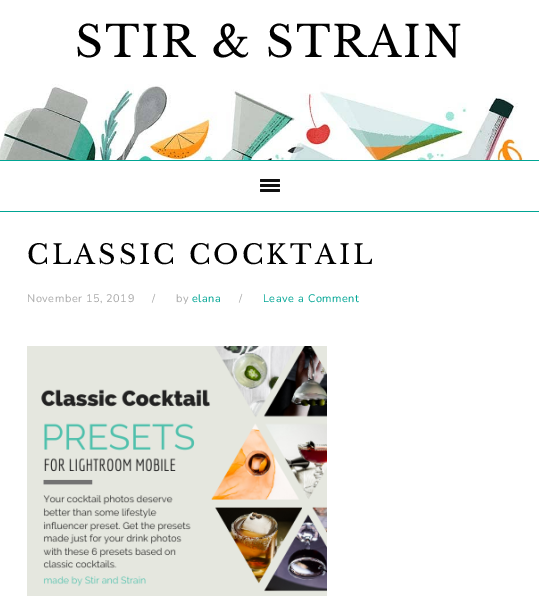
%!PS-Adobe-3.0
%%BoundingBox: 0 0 539 607
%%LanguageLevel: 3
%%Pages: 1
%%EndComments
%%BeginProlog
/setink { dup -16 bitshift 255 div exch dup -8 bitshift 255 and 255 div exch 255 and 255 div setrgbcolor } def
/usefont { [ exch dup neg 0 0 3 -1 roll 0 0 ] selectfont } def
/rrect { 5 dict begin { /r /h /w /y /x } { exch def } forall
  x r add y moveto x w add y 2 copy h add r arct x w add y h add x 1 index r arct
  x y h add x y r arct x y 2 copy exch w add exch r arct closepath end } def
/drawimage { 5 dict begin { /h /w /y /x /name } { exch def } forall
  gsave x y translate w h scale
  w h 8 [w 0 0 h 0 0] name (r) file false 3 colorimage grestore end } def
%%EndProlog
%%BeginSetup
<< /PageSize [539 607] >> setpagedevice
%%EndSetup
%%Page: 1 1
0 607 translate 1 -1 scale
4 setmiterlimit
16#FFFFFF setink
0 0 539 607 rectfill
(img1.raw) 0 84 524 76 drawimage
/LibreBaskerville-Regular 43.1 usefont
16#010101 setink
75 57 moveto 2 0 (STIR & STRAIN) ashow
16#00A594 setink
0 160 539 1 rectfill
0 211 539 1 rectfill
16#101010 setink
260 184 20 3 1 rrect fill
260 179 20 3 1 rrect fill
260 189 20 3 1 rrect fill
/LibreBaskerville-Regular 27 usefont
16#010101 setink
27 264 moveto 3 0 (CLASSIC COCKTAIL) ashow
/Nunito-Regular 11 usefont
16#AAAAAA setink
27 302 moveto 0.5 0 (November 15, 2019) ashow
152 302 moveto 0.5 0 (/) ashow
176 302 moveto 0.5 0 (by) ashow
16#00A594 setink
192 302 moveto 0.5 0 (elana) ashow
16#AAAAAA setink
239 302 moveto 0.5 0 (/) ashow
16#00A594 setink
263 302 moveto 0.5 0 (Leave a Comment) ashow
(img2.raw) 27 346 300 250 drawimage
showpage
%%EOF
